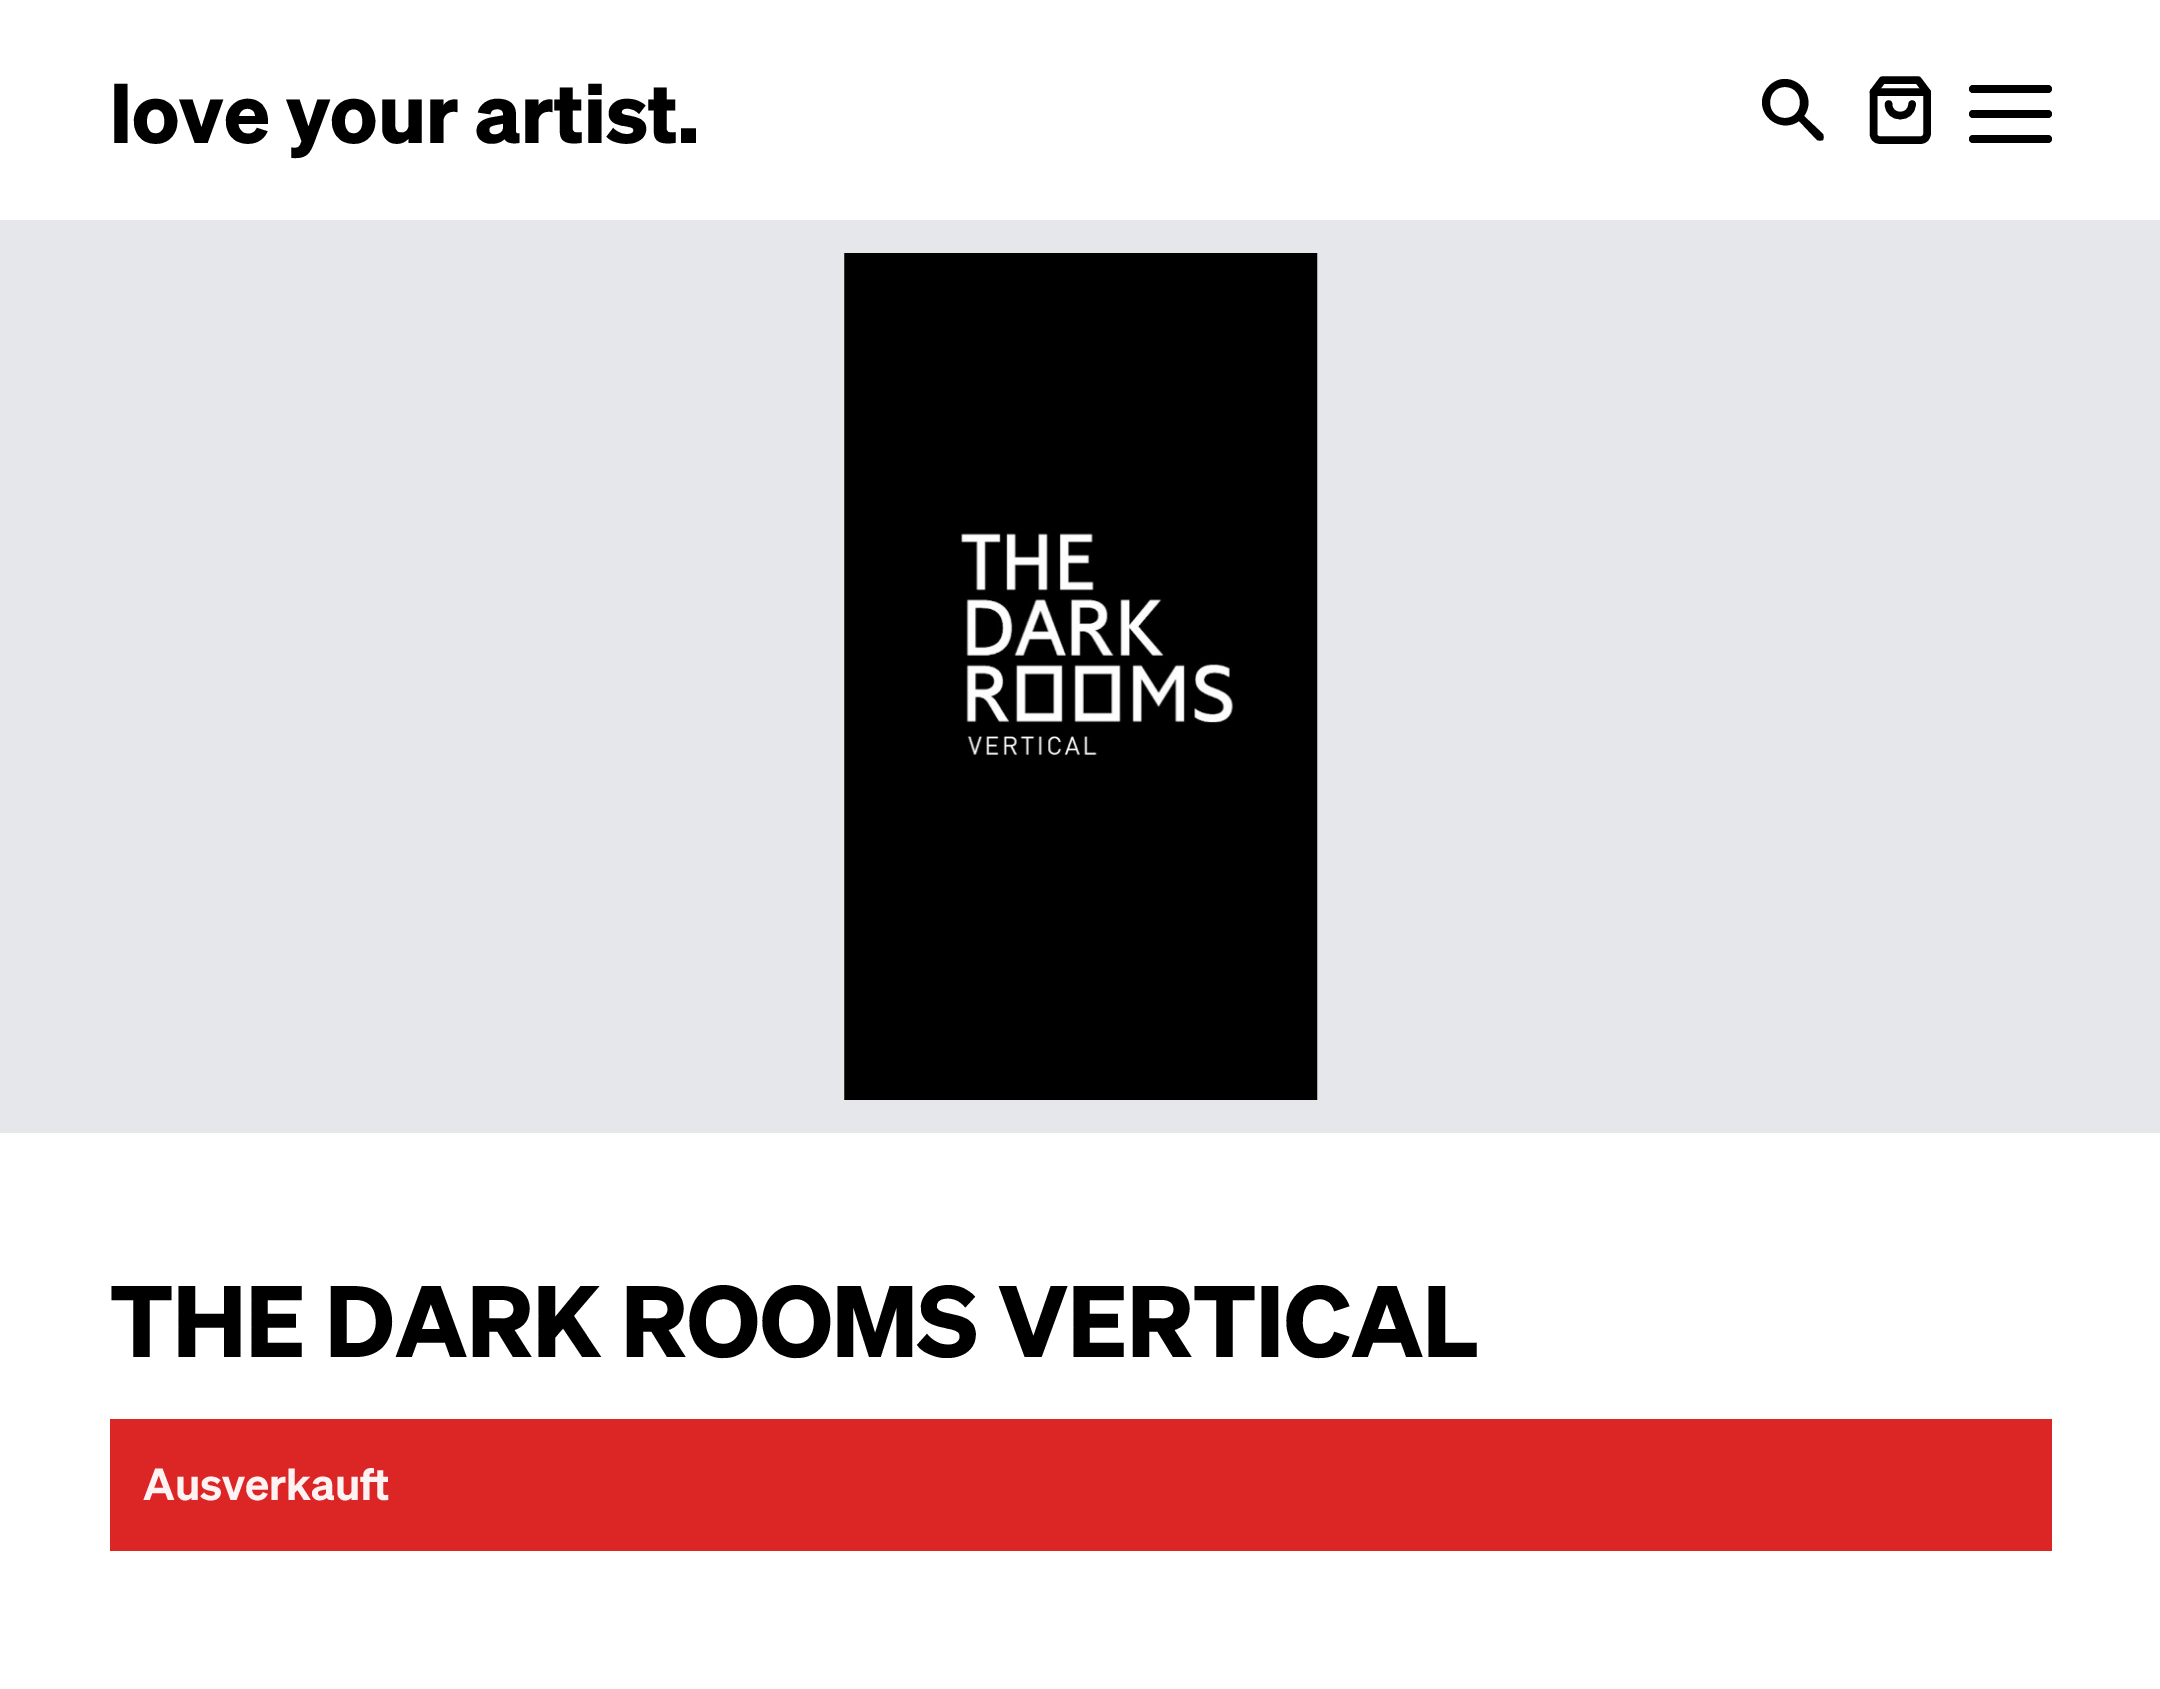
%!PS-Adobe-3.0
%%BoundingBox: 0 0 2160 1689
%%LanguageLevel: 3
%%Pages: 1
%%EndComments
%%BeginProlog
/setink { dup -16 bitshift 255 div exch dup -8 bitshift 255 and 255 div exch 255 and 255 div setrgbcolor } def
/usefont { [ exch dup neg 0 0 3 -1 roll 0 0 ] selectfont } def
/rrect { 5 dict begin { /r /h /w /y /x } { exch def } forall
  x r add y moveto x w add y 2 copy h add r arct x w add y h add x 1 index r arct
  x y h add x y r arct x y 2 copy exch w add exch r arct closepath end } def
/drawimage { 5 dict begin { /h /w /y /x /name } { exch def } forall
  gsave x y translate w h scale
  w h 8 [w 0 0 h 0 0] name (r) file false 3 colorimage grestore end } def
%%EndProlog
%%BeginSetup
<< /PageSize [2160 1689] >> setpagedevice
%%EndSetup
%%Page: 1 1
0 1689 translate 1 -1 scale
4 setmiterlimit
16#FFFFFF setink
0 0 2160 1689 rectfill
/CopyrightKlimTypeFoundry-Bold 82.5 usefont
16#000000 setink
110 143 moveto (love your artist.) show
1785 87 moveto 1765 87 1765 118 1785 118 curveto 1805 118 1805 87 1785 87 curveto closepath 1762 102 moveto 1762 96 1765 90 1769 86 curveto 1789 66 1820 93 1804 116 curveto 1823 134 lineto 1824 136 1824 138 1823 140 curveto 1821 141 1819 141 1817 140 curveto 1799 121 lineto 1784 132 1762 121 1762 102 curveto closepath eofill
7.4 setlinewidth
1 setlinecap
1 setlinejoin
1882.5 80 moveto 1873.5 92 lineto 1873.5 134 lineto 1873.5 137 1876 140 1879.5 140 curveto 1921 140 lineto 1924.5 140 1927 137 1927 134 curveto 1927 92 lineto 1918 80 lineto closepath stroke
1873.5 92 moveto 1927 92 lineto 1912 104 moveto 1912 119.5 1888.5 119.5 1888.5 104 curveto stroke
1969 110 83 8 4 rrect fill
1969 85 83 8 4 rrect fill
1969 135 83 8 4 rrect fill
16#E5E7EB setink
0 220 2160 913 rectfill
(img1.raw) 844 253 474 847 drawimage
/CopyrightKlimTypeFoundry-Bold 99 usefont
16#000000 setink
110 1357 moveto (THE DARK ROOMS VERTICAL) show
16#DC2626 setink
110 1419 1942 132 rectfill
/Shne-SemiBold 44 usefont
16#FEF2F2 setink
143 1500 moveto (Ausverkauft) show
showpage
%%EOF
